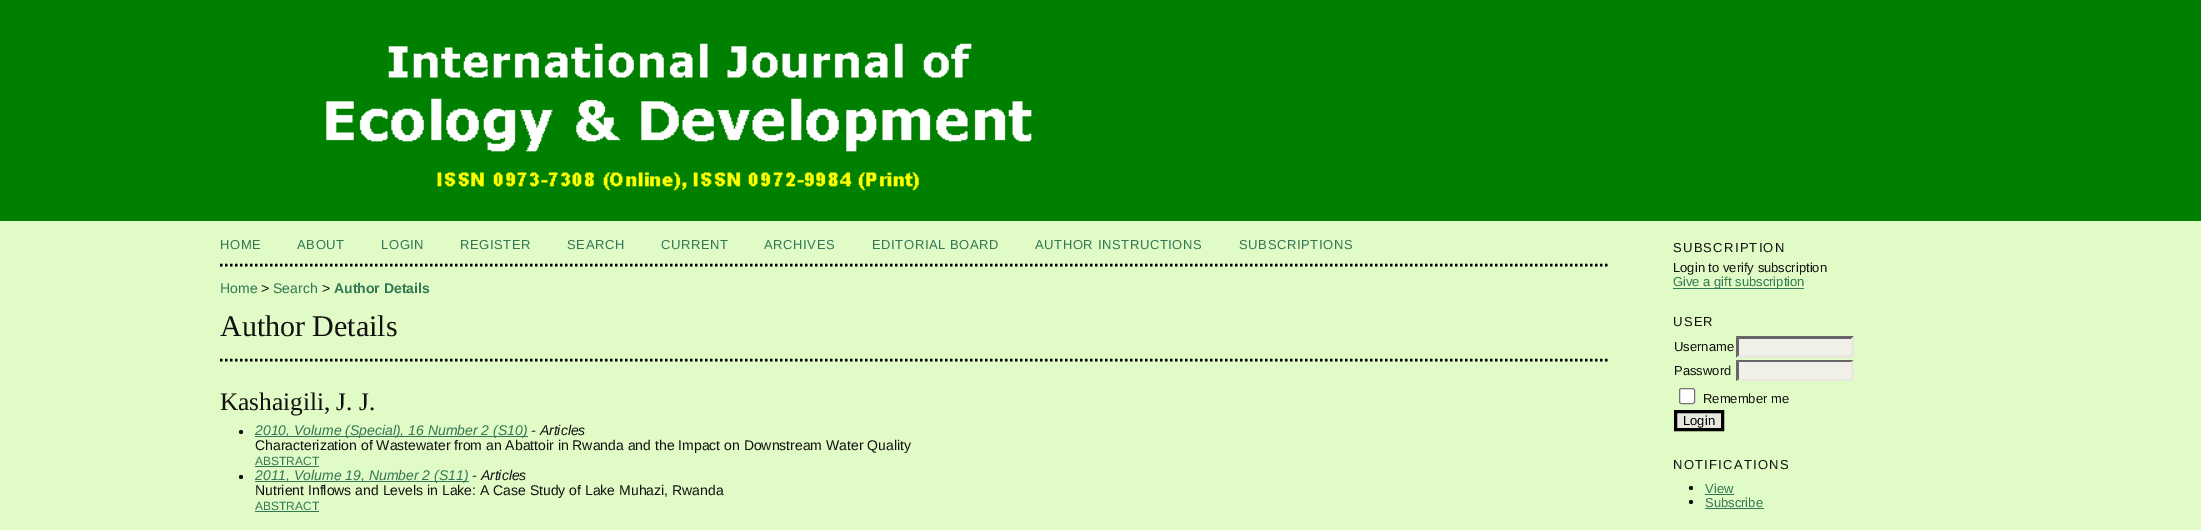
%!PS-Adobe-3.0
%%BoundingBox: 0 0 2201 530
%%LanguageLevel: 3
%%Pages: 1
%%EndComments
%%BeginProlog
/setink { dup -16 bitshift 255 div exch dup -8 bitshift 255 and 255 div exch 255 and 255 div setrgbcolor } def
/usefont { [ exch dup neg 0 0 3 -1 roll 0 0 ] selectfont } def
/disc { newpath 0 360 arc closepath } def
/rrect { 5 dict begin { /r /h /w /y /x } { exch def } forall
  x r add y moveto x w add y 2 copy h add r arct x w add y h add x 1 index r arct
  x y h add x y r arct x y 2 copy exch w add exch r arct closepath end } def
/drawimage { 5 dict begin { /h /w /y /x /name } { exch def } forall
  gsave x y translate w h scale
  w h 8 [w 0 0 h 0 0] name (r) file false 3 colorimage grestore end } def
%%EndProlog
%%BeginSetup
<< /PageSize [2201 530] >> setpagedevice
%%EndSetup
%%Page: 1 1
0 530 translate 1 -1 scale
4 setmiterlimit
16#E0FBC5 setink
0 0 2201 530 rectfill
16#008000 setink
0 0 2201 221 rectfill
(img1.raw) 326 43 706 148 drawimage
16#000000 setink
2.5 setlinewidth
[2.5 2.5] 0 setdash
220 265 moveto 1607.5 265 lineto stroke
/LiberationSans-Regular 13 usefont
16#337755 setink
220 249 moveto 0.6 0 (HOME) ashow
297 249 moveto 0.6 0 (ABOUT) ashow
381 249 moveto 0.6 0 (LOGIN) ashow
460 249 moveto 0.6 0 (REGISTER) ashow
567 249 moveto 0.6 0 (SEARCH) ashow
661 249 moveto 0.6 0 (CURRENT) ashow
764 249 moveto 0.6 0 (ARCHIVES) ashow
872 249 moveto 0.6 0 (EDITORIAL BOARD) ashow
1035 249 moveto 0.6 0 (AUTHOR INSTRUCTIONS) ashow
1239 249 moveto 0.6 0 (SUBSCRIPTIONS) ashow
/LiberationSans-Regular 14 usefont
220 293 moveto (Home) show
16#111111 setink
261 293 moveto (>) show
16#337755 setink
273 293 moveto (Search) show
16#111111 setink
322 293 moveto (>) show
/LiberationSans-Bold 14 usefont
16#337755 setink
334 293 moveto (Author Details) show
/LiberationSerif-Regular 30 usefont
16#111111 setink
220 336 moveto (Author Details) show
16#000000 setink
220 360 moveto 1607.5 360 lineto stroke
/LiberationSerif-Regular 25.25 usefont
16#111111 setink
220 410 moveto (Kashaigili, J. J.) show
241 432 2 disc fill
16#337755 setink
255 436 273 1 rectfill
/LiberationSans-Italic 14 usefont
255 435 moveto (2010, Volume \(Special\), 16 Number 2 \(S10\)) show
16#111111 setink
531 435 moveto (- Articles) show
/LiberationSans-Regular 14 usefont
255 450 moveto (Characterization of Wastewater from an Abattoir in Rwanda and the Impact on Downstream Water Quality) show
/LiberationSans-Regular 12 usefont
16#337755 setink
255 465 moveto (ABSTRACT) show
255 466 64 1 rectfill
16#111111 setink
241 477 2 disc fill
16#337755 setink
255 481 214 1 rectfill
/LiberationSans-Italic 14 usefont
255 480 moveto (2011, Volume 19, Number 2 \(S11\)) show
16#111111 setink
472 480 moveto (- Articles) show
/LiberationSans-Regular 14 usefont
255 495 moveto (Nutrient Inflows and Levels in Lake: A Case Study of Lake Muhazi, Rwanda) show
/LiberationSans-Regular 12 usefont
16#337755 setink
255 510 moveto (ABSTRACT) show
255 511 64 1 rectfill
/LiberationSans-Regular 13 usefont
16#111111 setink
1673 252 moveto 1.25 0 (SUBSCRIPTION) ashow
1673 272 moveto (Login to verify subscription) show
16#337755 setink
1673 288 131 1 rectfill
1673 286 moveto (Give a gift subscription) show
16#111111 setink
1673 326 moveto 1.25 0 (USER) ashow
1674 351 moveto (Username) show
16#F0F0E8 setink
1736 336 118 22 rectfill
16#666666 setink
1736 336 moveto 1854 336 lineto 1851 339 lineto 1739 339 lineto closepath fill
16#E8E8E1 setink
1854 336 moveto 1854 357.5 lineto 1851 355 lineto 1851 339 lineto closepath fill
1854 358 moveto 1736 358 lineto 1739 355 lineto 1851 355 lineto closepath fill
16#666666 setink
1736 357.5 moveto 1736 336 lineto 1739 339 lineto 1739 355 lineto closepath fill
16#111111 setink
1674 375 moveto (Password) show
16#F0F0E8 setink
1736 360 118 21 rectfill
16#666666 setink
1736 360 moveto 1854 360 lineto 1851 362 lineto 1739 362 lineto closepath fill
16#E8E8E1 setink
1854 360 moveto 1854 381 lineto 1851 379 lineto 1851 362.5 lineto closepath fill
1854 381 moveto 1736 381 lineto 1739 379 lineto 1851 379 lineto closepath fill
16#666666 setink
1736 381 moveto 1736 360 lineto 1739 362.5 lineto 1739 379 lineto closepath fill
16#FFFFFF setink
1679.5 388.5 15 15 2 rrect gsave fill grestore
16#767676 setink
1 setlinewidth
[] 0 setdash
stroke
16#111111 setink
1703 403 moveto (Remember me) show
16#E8E8E1 setink
1675.5 411.5 moveto 1722.5 411.5 lineto 1722.5 429.5 lineto 1675.5 429.5 lineto closepath gsave fill grestore
16#000000 setink
3 setlinewidth
stroke
1683 425 moveto (Login) show
16#111111 setink
1673 469 moveto 1.25 0 (NOTIFICATIONS) ashow
1691 488 2 disc fill
16#337755 setink
1705 493 moveto (View) show
1705 494 29 1 rectfill
16#111111 setink
1691 502 2 disc fill
16#337755 setink
1705 507 moveto (Subscribe) show
1705 508 59 1 rectfill
showpage
%%EOF
